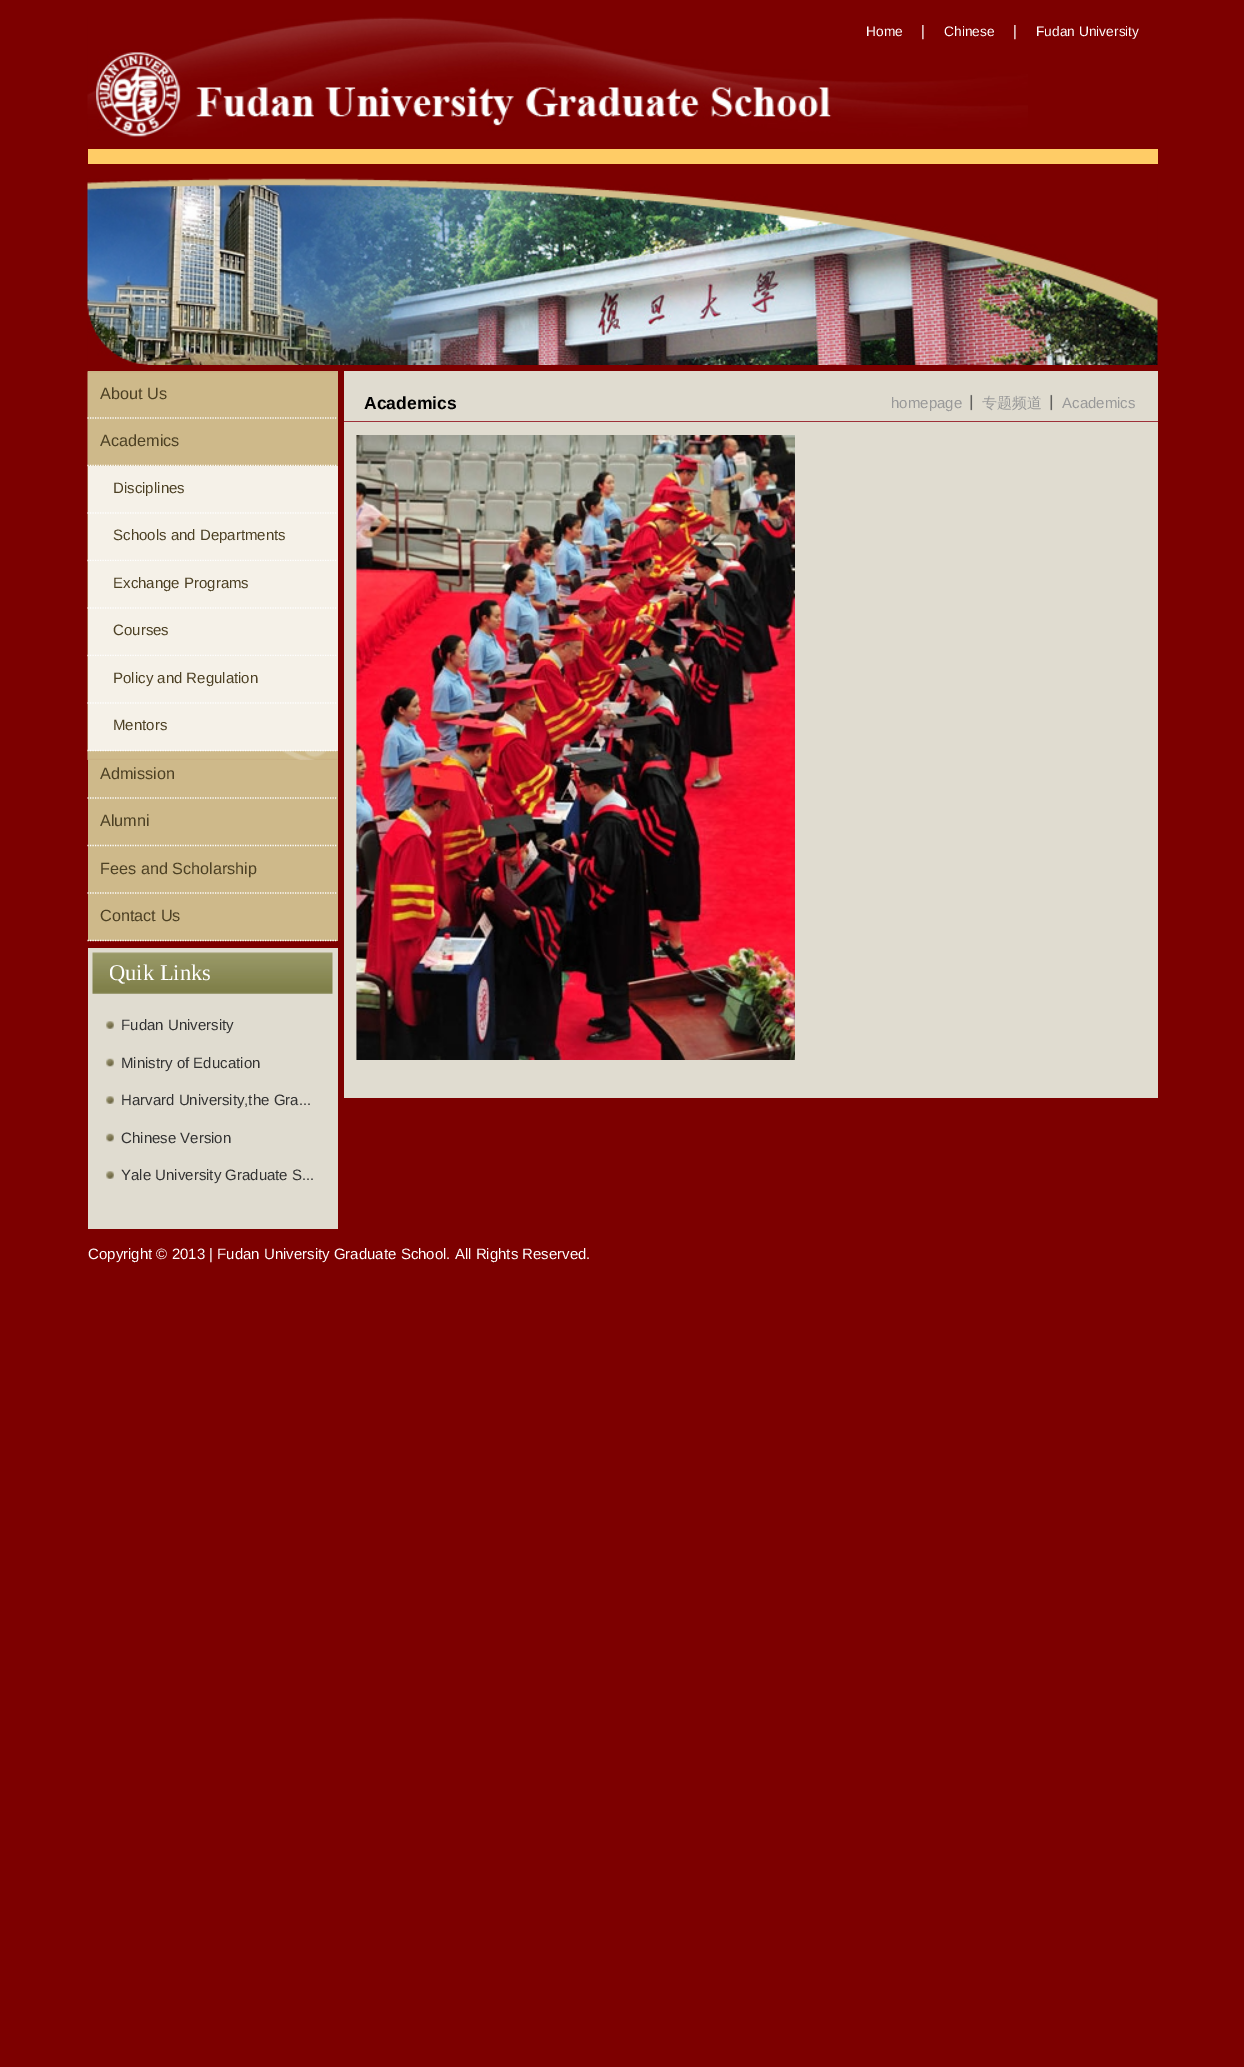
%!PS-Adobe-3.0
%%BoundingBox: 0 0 1244 2067
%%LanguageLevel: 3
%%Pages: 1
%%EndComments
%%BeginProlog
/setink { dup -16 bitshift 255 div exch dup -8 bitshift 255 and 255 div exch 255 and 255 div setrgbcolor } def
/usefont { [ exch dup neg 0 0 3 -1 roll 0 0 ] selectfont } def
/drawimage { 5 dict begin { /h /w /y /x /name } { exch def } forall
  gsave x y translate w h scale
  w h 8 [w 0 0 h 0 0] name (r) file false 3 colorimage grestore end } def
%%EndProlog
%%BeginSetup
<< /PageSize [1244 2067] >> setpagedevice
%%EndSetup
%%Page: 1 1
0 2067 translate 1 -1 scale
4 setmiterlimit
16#7D0000 setink
0 0 1244 2067 rectfill
(img1.raw) 87 17 941 120 drawimage
16#FFCC66 setink
88 149 1070 15 rectfill
/LiberationSans-Regular 13.75 usefont
16#FFFFFF setink
866 36 moveto (Home) show
/LiberationSans-Regular 15 usefont
921 36 moveto (|) show
/LiberationSans-Regular 13.75 usefont
944 36 moveto (Chinese) show
/LiberationSans-Regular 15 usefont
1013 36 moveto (|) show
/LiberationSans-Regular 13.75 usefont
1036 36 moveto (Fudan University) show
(img2.raw) 87 178 1071 187 drawimage
16#CEB98A setink
88 371 250 570 rectfill
(img3.raw) 87 371 251 389 drawimage
16#FFFFFF setink
1.2 setlinewidth
[1.25 1.25] 0 setdash
87.5 418 moveto 337.5 418 lineto stroke
/LiberationSans-Regular 16.25 usefont
16#4D4124 setink
100 399 moveto (About Us) show
16#FFFFFF setink
87.5 465.5 moveto 337.5 465.5 lineto stroke
16#4D4124 setink
100 446 moveto (Academics) show
16#F5F1E8 setink
88 466 250 95 rectfill
16#FFFFFF setink
87.5 513 moveto 337.5 513 lineto stroke
/LiberationSans-Regular 15 usefont
16#4D4124 setink
113 493 moveto (Disciplines) show
16#FFFFFF setink
87.5 560.5 moveto 337.5 560.5 lineto stroke
16#4D4124 setink
113 540 moveto (Schools and Departments) show
16#F5F1E8 setink
88 561 250 95 rectfill
16#FFFFFF setink
87.5 608 moveto 337.5 608 lineto stroke
16#4D4124 setink
113 588 moveto (Exchange Programs) show
16#FFFFFF setink
87.5 655.5 moveto 337.5 655.5 lineto stroke
16#4D4124 setink
113 635 moveto (Courses) show
16#F5F1E8 setink
88 656 250 95 rectfill
16#FFFFFF setink
87.5 703 moveto 337.5 703 lineto stroke
16#4D4124 setink
113 683 moveto (Policy and Regulation) show
16#FFFFFF setink
87.5 750.5 moveto 337.5 750.5 lineto stroke
16#4D4124 setink
113 730 moveto (Mentors) show
16#FFFFFF setink
87.5 798 moveto 337.5 798 lineto stroke
/LiberationSans-Regular 16.25 usefont
16#4D4124 setink
100 779 moveto (Admission) show
16#FFFFFF setink
87.5 845.5 moveto 337.5 845.5 lineto stroke
16#4D4124 setink
100 826 moveto (Alumni) show
16#FFFFFF setink
87.5 893 moveto 337.5 893 lineto stroke
16#4D4124 setink
100 874 moveto (Fees and Scholarship) show
16#FFFFFF setink
87.5 940.5 moveto 337.5 940.5 lineto stroke
16#4D4124 setink
100 921 moveto (Contact Us) show
16#E0DCD0 setink
88 948 250 281 rectfill
(img4.raw) 92 952 241 42 drawimage
/LiberationSerif-Regular 22.5 usefont
16#FFFFFF setink
109 980 moveto (Quik Links) show
(img5.raw) 106 1021 8 8 drawimage
/LiberationSans-Regular 15 usefont
16#333333 setink
121 1030 moveto (Fudan University) show
(img6.raw) 106 1058 8 9 drawimage
121 1068 moveto (Ministry of Education) show
(img5.raw) 106 1096 8 8 drawimage
121 1105 moveto (Harvard University,the Gra...) show
(img6.raw) 106 1133 8 9 drawimage
121 1143 moveto (Chinese Version) show
(img7.raw) 106 1171 8 8 drawimage
121 1180 moveto (Yale University Graduate S...) show
16#E0DCD0 setink
344 371 814 727 rectfill
16#9E3039 setink
344 421 814 1 rectfill
/LiberationSans-Bold 17.5 usefont
16#000000 setink
364 409 moveto (Academics) show
/LiberationSans-Regular 15 usefont
16#999999 setink
891 408 moveto (homepage) show
(img8.raw) 970 394 3 17 drawimage
/WenQuanYiZenHei-Medium 15 usefont
982 408 moveto (专题频道) show
(img8.raw) 1050 394 3 17 drawimage
/LiberationSans-Regular 15 usefont
1062 408 moveto (Academics) show
(img9.raw) 356 435 439 625 drawimage
16#FFFFFF setink
88 1259 moveto (Copyright © 2013 | Fudan University Graduate School. All Rights Reserved.) show
showpage
%%EOF
